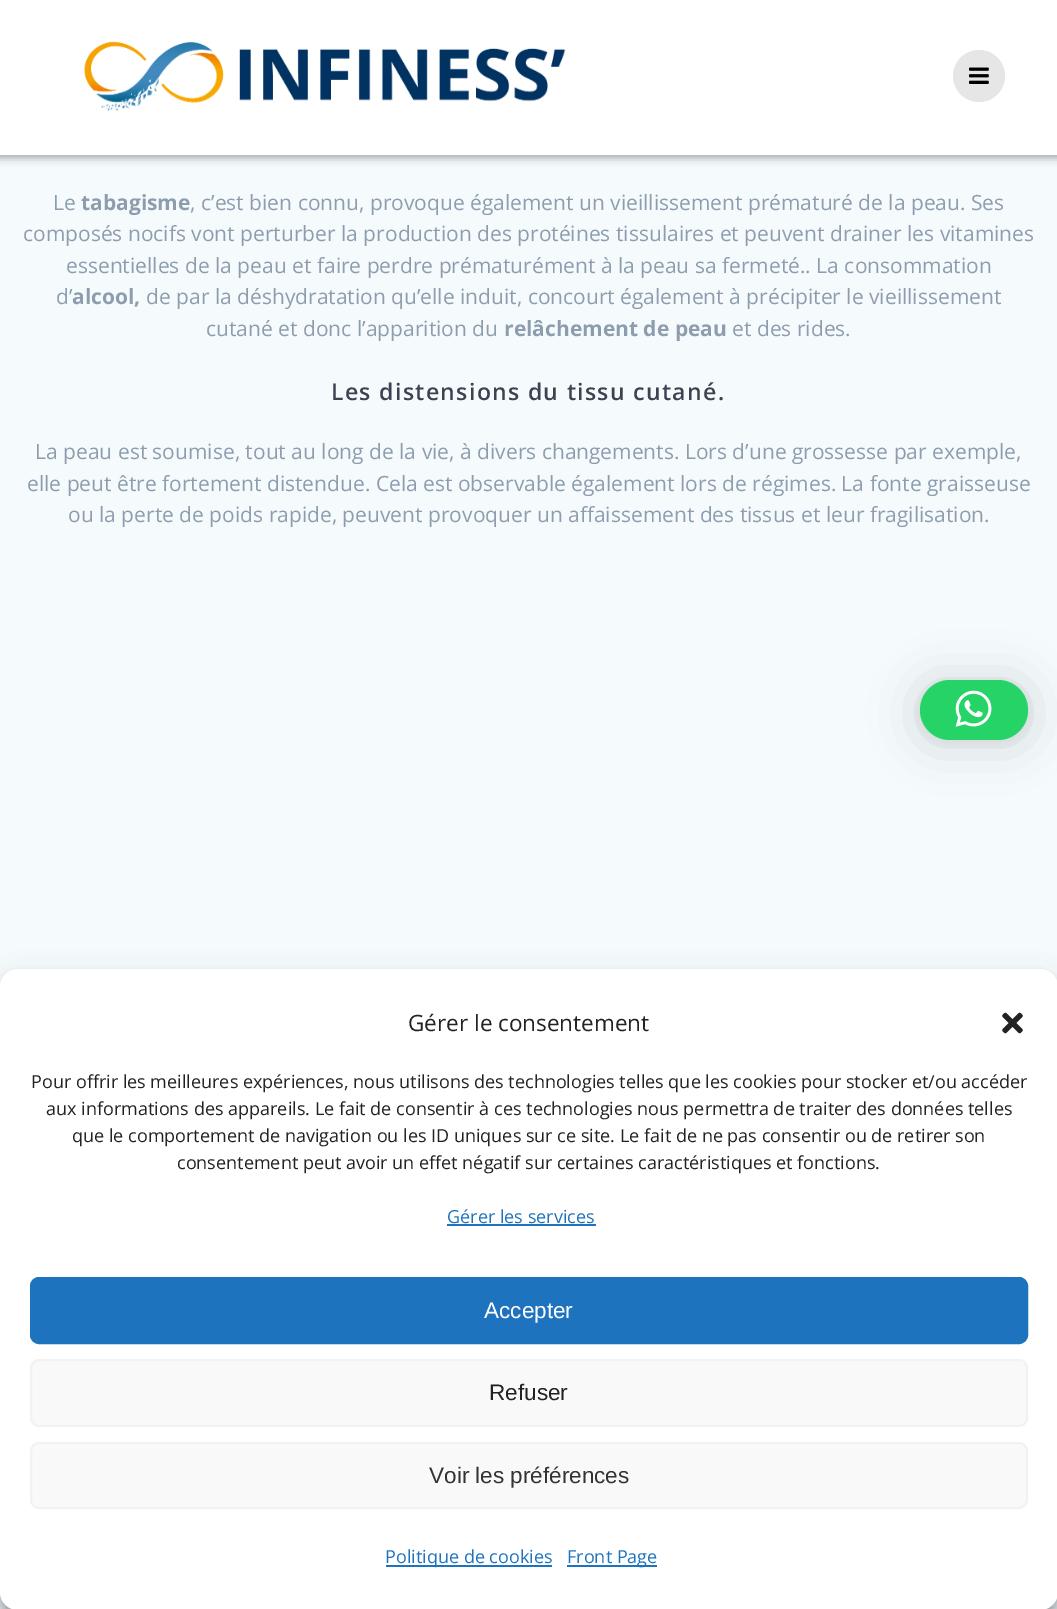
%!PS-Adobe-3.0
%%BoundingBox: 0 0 1057 1609
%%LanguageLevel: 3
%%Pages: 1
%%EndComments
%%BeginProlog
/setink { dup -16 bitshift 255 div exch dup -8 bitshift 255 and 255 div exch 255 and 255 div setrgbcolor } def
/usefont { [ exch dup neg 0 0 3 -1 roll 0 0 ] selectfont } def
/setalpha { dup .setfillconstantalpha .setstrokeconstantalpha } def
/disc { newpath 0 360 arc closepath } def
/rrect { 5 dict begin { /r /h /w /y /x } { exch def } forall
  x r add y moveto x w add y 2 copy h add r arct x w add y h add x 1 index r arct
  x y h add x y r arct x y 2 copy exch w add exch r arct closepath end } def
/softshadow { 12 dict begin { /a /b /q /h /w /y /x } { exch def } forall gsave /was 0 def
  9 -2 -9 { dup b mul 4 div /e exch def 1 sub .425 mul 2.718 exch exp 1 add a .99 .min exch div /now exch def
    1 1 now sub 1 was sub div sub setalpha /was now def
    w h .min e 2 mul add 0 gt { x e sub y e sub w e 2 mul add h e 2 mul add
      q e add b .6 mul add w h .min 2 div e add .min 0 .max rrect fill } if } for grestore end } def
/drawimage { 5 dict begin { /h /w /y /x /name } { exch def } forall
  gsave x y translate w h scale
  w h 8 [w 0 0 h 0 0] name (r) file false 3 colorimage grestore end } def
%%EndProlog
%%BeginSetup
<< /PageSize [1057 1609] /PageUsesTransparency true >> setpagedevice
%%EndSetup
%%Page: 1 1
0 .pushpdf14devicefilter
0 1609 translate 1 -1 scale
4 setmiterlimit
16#F5FAFD setink
0 0 1057 1609 rectfill
16#000000 setink
-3 -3 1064 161 0 4 0.33 softshadow
16#FFFFFF setink
0 0 1057 155 rectfill
(img1.raw) 84 41 482 70 drawimage
16#E6E6E6 setink
979 76 26 disc fill
(img2.raw) 969 67 20 17 drawimage
/OpenSans-Regular 21 usefont
16#8E9DAE setink
53 210 moveto (Le) show
/OpenSans-Bold 21 usefont
81 210 moveto (tabagisme) show
/OpenSans-Regular 21 usefont
[
    [(, c’est bien connu, provoque également un vieillissement prématuré de la peau. Ses) 190 210]
    [(composés nocifs vont perturber la production des protéines tissulaires et peuvent drainer les vitamines) 23 241]
    [(essentielles de la peau et faire perdre prématurément à la peau sa fermeté.. La consommation) 66 273]
    [(d’) 56 304]
] { aload pop moveto show } forall
/OpenSans-Bold 21 usefont
72 304 moveto (alcool,) show
/OpenSans-Regular 21 usefont
146 304 moveto (de par la déshydratation qu’elle induit, concourt également à précipiter le vieillissement) show
206 336 moveto (cutané et donc l’apparition du) show
/OpenSans-Bold 21 usefont
504 336 moveto (relâchement de peau) show
/OpenSans-Regular 21 usefont
732 336 moveto (et des rides.) show
/OpenSans-SemiBold 23.1 usefont
16#3C424F setink
331 400 moveto 1.3 0 (Les distensions du tissu cutané.) ashow
/OpenSans-Regular 21 usefont
16#8E9DAE setink
[
    [(La peau est soumise, tout au long de la vie, à divers changements. Lors d’une grossesse par exemple,) 35 459]
    [(elle peut être fortement distendue. Cela est observable également lors de régimes. La fonte graisseuse) 27 491]
    [(ou la perte de poids rapide, peuvent provoquer un affaissement des tissus et leur fragilisation.) 68 522]
] { aload pop moveto show } forall
16#000000 setink
920 683 108 60 30 24 0.16 softshadow
920 681 108 60 30 4.5 0.06 softshadow
16#25D366 setink
920 680 108 60 30 rrect fill
(img3.raw) 955 690 37 37 drawimage
16#000000 setink
0 978 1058 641 18 4.5 0.23 softshadow
0 984 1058 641 18 15 0.19 softshadow
16#FFFFFF setink
0 969 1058 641 18 rrect fill
/OpenSans-Regular 22.5 usefont
16#222222 setink
408 1031 moveto (Gérer le consentement) show
(img4.raw) 1002 1012 21 22 drawimage
/OpenSans-Regular 18 usefont
[
    [(Pour offrir les meilleures expériences, nous utilisons des technologies telles que les cookies pour stocker et/ou accéder) 31 1088]
    [(aux informations des appareils. Le fait de consentir à ces technologies nous permettra de traiter des données telles) 46 1115]
    [(que le comportement de navigation ou les ID uniques sur ce site. Le fait de ne pas consentir ou de retirer son) 72 1142]
    [(consentement peut avoir un effet négatif sur certaines caractéristiques et fonctions.) 177 1169]
] { aload pop moveto show } forall
16#1E73BE setink
447 1223 moveto (Gérer les services) show
447 1224 149 2 rectfill
31 1278 996 65 8 rrect gsave fill grestore
2 setlinewidth
stroke
/LiberationSans-Regular 22.5 usefont
16#FFFFFF setink
484 1318 moveto (Accepter) show
16#F9F9F9 setink
31 1360 996 66 8 rrect gsave fill grestore
16#F2F2F2 setink
stroke
16#222222 setink
489 1400 moveto (Refuser) show
16#F9F9F9 setink
31 1443 996 65 8 rrect gsave fill grestore
16#F2F2F2 setink
stroke
16#333333 setink
429 1483 moveto (Voir les préférences) show
16#1E73BE setink
386 1565 166 2 rectfill
/OpenSans-Regular 18 usefont
385 1563 moveto (Politique de cookies) show
567 1565 90 2 rectfill
567 1563 moveto (Front Page) show
.poppdf14devicefilter showpage
%%EOF
